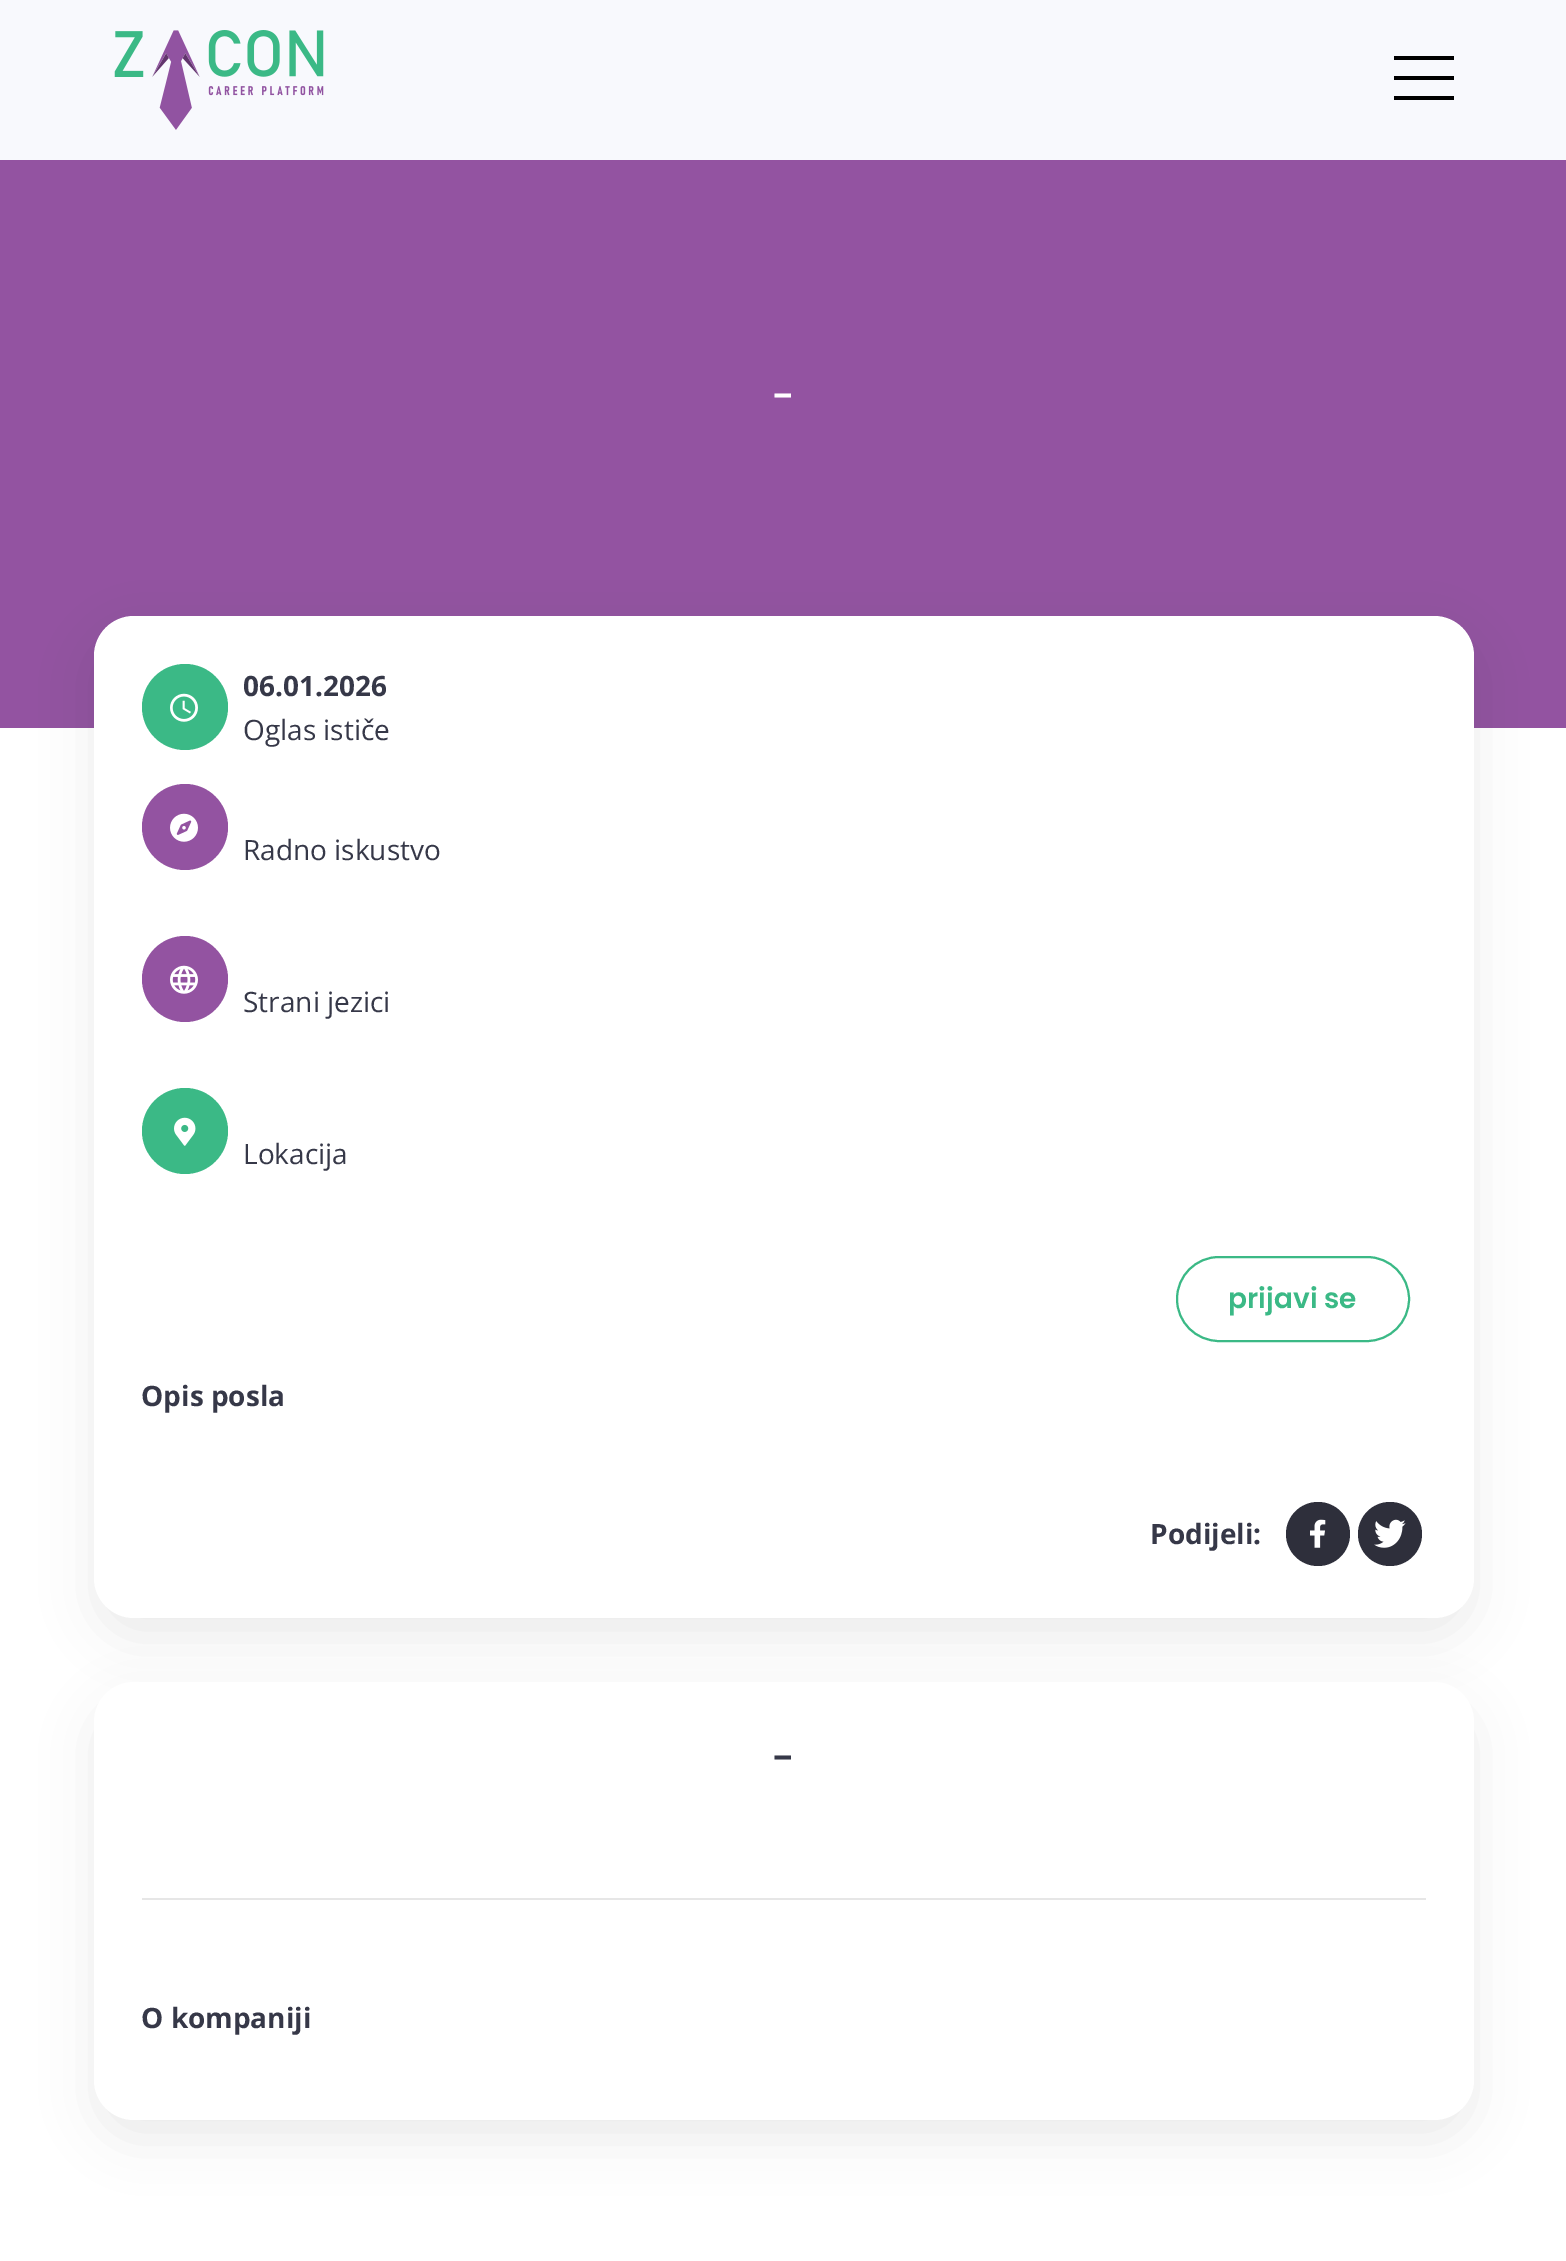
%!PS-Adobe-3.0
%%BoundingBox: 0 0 1566 2261
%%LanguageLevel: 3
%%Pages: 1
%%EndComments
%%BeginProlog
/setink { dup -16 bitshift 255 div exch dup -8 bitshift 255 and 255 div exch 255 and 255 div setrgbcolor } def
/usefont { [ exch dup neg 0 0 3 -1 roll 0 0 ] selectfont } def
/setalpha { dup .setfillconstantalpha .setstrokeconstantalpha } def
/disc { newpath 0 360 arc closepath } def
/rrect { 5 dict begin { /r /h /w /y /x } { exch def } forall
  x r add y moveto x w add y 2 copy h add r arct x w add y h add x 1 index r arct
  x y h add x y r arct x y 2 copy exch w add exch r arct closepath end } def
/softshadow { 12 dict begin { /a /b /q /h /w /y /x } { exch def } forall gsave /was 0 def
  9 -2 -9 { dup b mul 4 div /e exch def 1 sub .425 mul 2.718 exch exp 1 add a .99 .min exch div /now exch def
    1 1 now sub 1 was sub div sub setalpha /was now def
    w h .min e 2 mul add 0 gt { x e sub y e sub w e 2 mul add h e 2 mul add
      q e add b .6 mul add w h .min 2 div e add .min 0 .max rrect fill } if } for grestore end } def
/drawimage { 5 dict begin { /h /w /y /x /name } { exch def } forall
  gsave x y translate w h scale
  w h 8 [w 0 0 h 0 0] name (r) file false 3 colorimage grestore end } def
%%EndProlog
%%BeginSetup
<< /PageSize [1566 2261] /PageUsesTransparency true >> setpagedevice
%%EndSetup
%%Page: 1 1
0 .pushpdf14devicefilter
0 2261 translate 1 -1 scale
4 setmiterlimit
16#FFFFFF setink
0 0 1566 2261 rectfill
16#F8F9FD setink
0 0 1566 160 rectfill
(img1.raw) 114 30 210 100 drawimage
[
    [1394 56 60 4 16#000000]
    [1394 76 60 4 16#000000]
    [1394 96 60 4 16#000000]
    [0 160 1566 568 16#9353A1]
] { aload pop setink rectfill } forall
/Poppins-Medium 40 usefont
16#FFFFFF setink
771 410 moveto (-) show
16#000000 setink
94 636 1380 1002 40 25 0.07 softshadow
16#FFFFFF setink
94 616 1380 1002 40 rrect fill
16#3BB986 setink
185 707 43 disc fill
(img2.raw) 170 693 28 29 drawimage
/OpenSans-Bold 28 usefont
16#363848 setink
243 696 moveto (06.01.2026) show
/OpenSans-Regular 28 usefont
243 740 moveto (Oglas ističe) show
16#9353A1 setink
185 827 43 disc fill
(img3.raw) 170 813 28 29 drawimage
16#363848 setink
243 860 moveto (Radno iskustvo) show
16#9353A1 setink
185 979 43 disc fill
(img4.raw) 170 965 28 29 drawimage
16#363848 setink
243 1012 moveto (Strani jezici) show
16#3BB986 setink
185 1131 43 disc fill
(img5.raw) 174 1117 22 29 drawimage
16#363848 setink
243 1164 moveto (Lokacija) show
16#3BB986 setink
2 setlinewidth
1177 1257 232 84 42 rrect stroke
/Poppins-SemiBold 28 usefont
1228 1308 moveto (prijavi se) show
/OpenSans-Bold 28 usefont
16#363848 setink
141 1406 moveto (Opis posla) show
1150 1544 moveto (Podijeli:) show
16#2E2F3B setink
1318 1534 32 disc fill
(img6.raw) 1310 1519 16 29 drawimage
1390 1534 32 disc fill
(img7.raw) 1374 1519 32 29 drawimage
16#000000 setink
94 1702 1380 438 40 25 0.07 softshadow
16#FFFFFF setink
94 1682 1380 438 40 rrect fill
/Poppins-Medium 40 usefont
16#363848 setink
771 1772 moveto (-) show
16#E6E6E6 setink
142 1898 1284 2 rectfill
/OpenSans-Bold 28 usefont
16#363848 setink
141 2028 moveto (O kompaniji) show
.poppdf14devicefilter showpage
%%EOF
